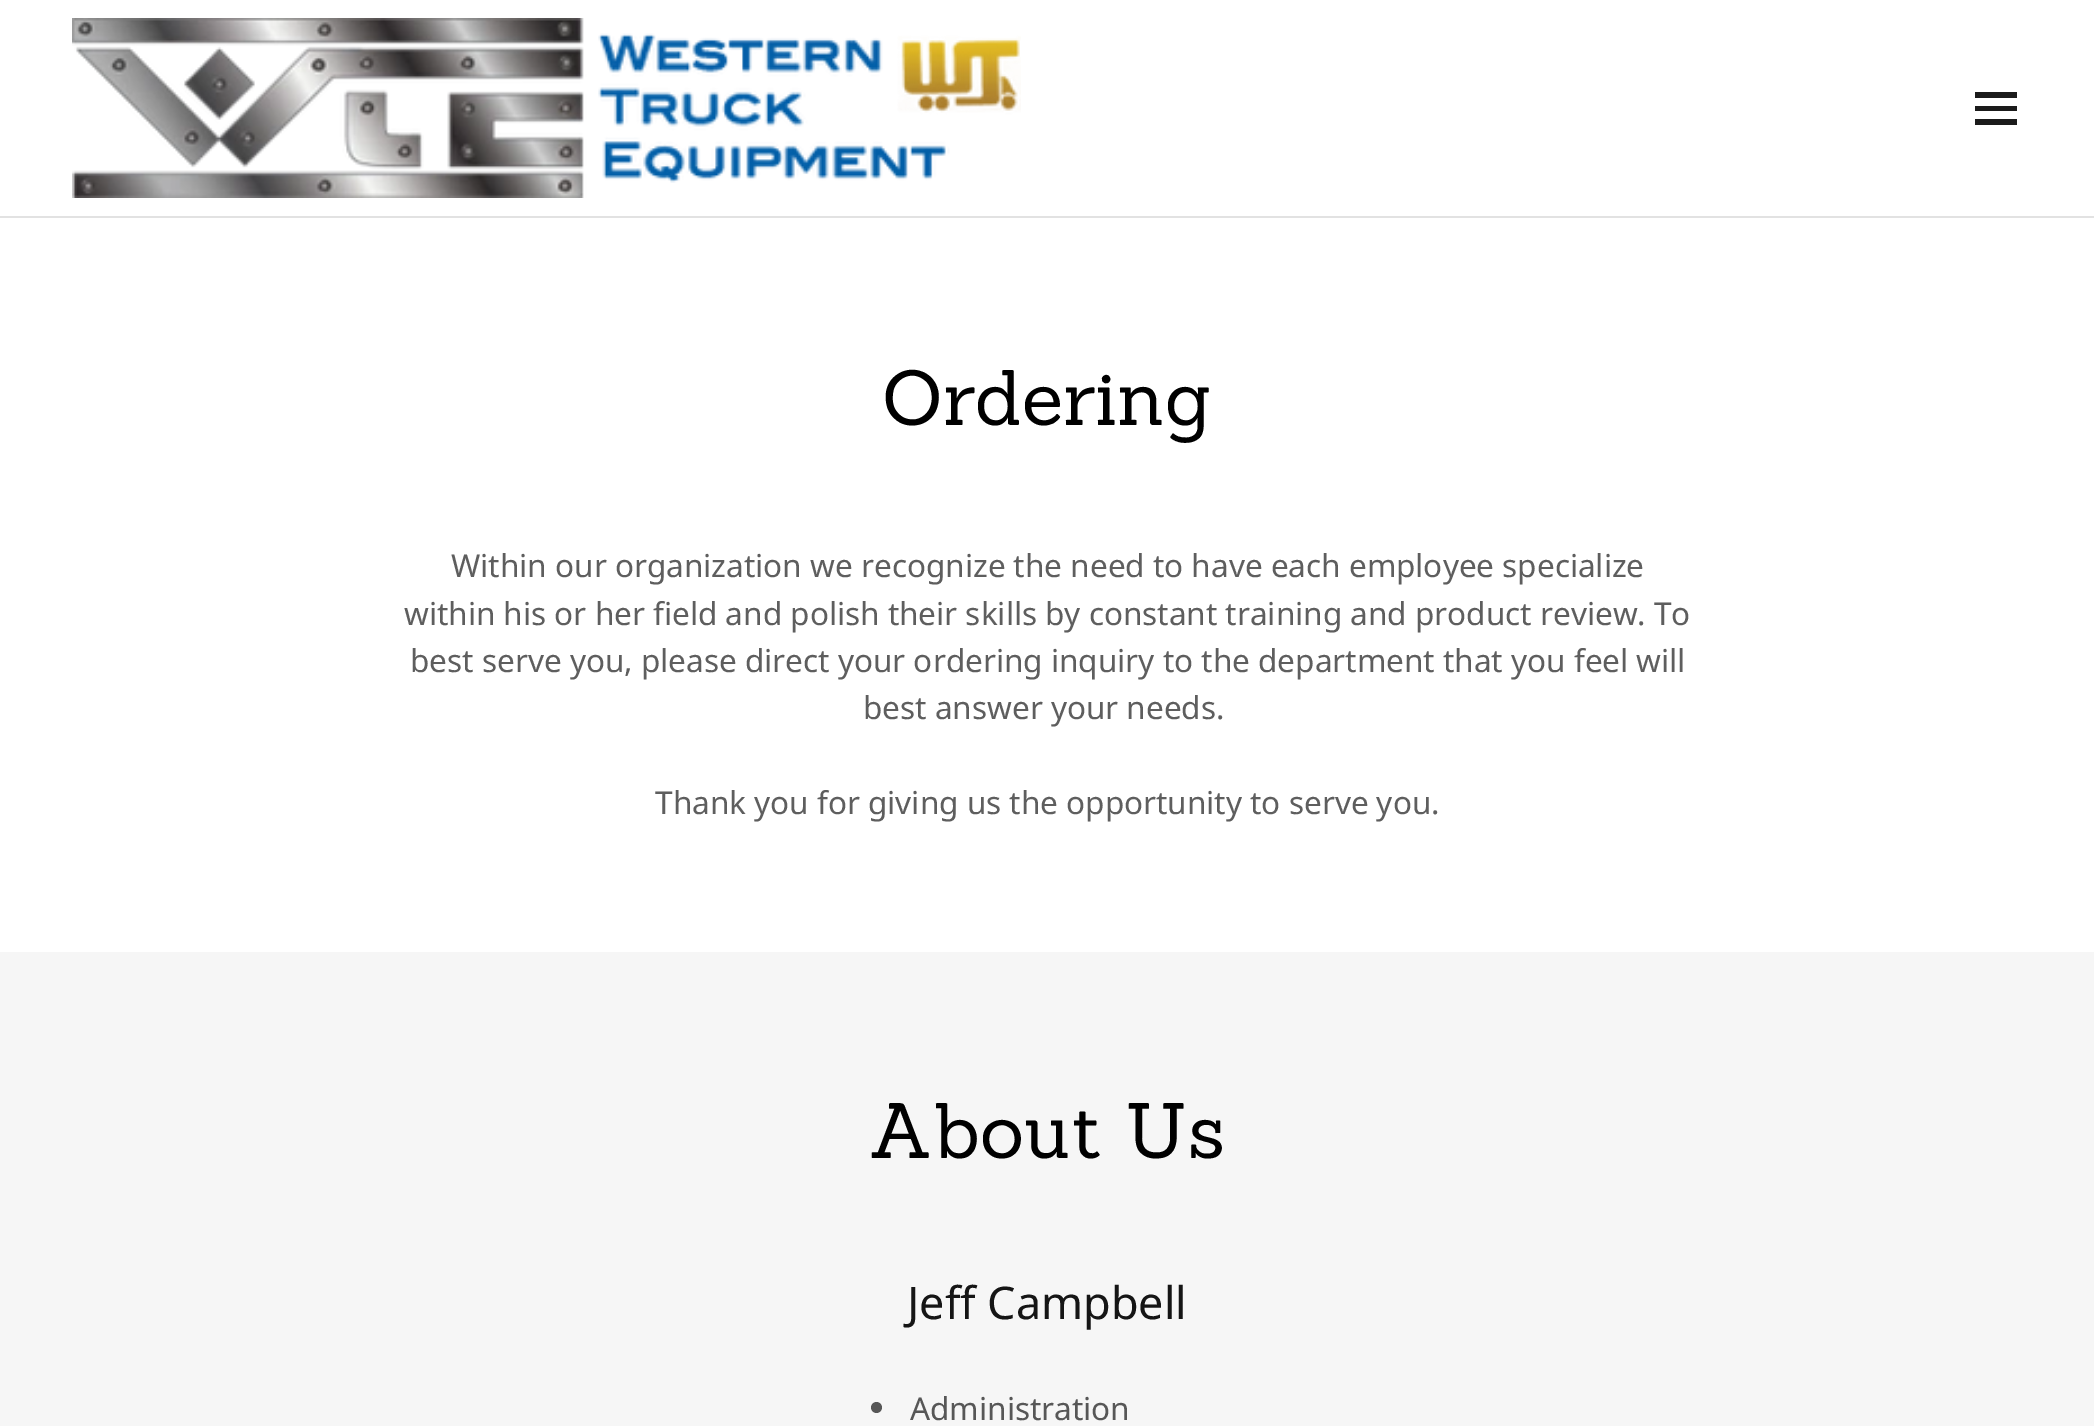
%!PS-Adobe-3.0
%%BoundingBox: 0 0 2094 1426
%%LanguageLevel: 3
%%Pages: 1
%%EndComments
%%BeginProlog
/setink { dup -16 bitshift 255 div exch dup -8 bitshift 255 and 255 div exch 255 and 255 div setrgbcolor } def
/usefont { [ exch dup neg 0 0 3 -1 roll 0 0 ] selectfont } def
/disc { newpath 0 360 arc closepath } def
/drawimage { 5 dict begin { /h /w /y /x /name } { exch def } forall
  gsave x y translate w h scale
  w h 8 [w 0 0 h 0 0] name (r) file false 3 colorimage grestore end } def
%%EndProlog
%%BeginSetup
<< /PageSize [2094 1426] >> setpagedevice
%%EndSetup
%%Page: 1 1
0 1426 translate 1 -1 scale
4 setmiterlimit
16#FFFFFF setink
0 0 2094 1426 rectfill
(img1.raw) 72 18 949 180 drawimage
[
    [1975 92 42 6 16#1B1B1B]
    [1975 106 42 5 16#1B1B1B]
    [1975 119 42 6 16#1B1B1B]
    [0 216 2094 2 16#E2E2E2]
] { aload pop setink rectfill } forall
/Sanchez-Regular 76.5 usefont
16#000000 setink
882 425 moveto (Ordering) show
/NotoSans-Regular 31.5 usefont
16#5E5E5E setink
[
    [(Within our organization we recognize the need to have each employee specialize) 451 577]
    [(within his or her field and polish their skills by constant training and product review. To) 404 625]
    [(best serve you, please direct your ordering inquiry to the department that you feel will) 410 672]
    [(best answer your needs.) 863 719]
    [(Thank you for giving us the opportunity to serve you.) 655 814]
] { aload pop moveto show } forall
16#F6F6F6 setink
0 952 2094 474 rectfill
/Sanchez-Regular 76.5 usefont
16#000000 setink
869 1158 moveto (About Us) show
/NotoSans-Regular 45 usefont
16#151515 setink
907 1319 moveto (Jeff Campbell) show
16#575757 setink
876.5 1407.5 5.5 disc fill
/NotoSans-Regular 31.5 usefont
910 1420 moveto (Administration) show
showpage
%%EOF
